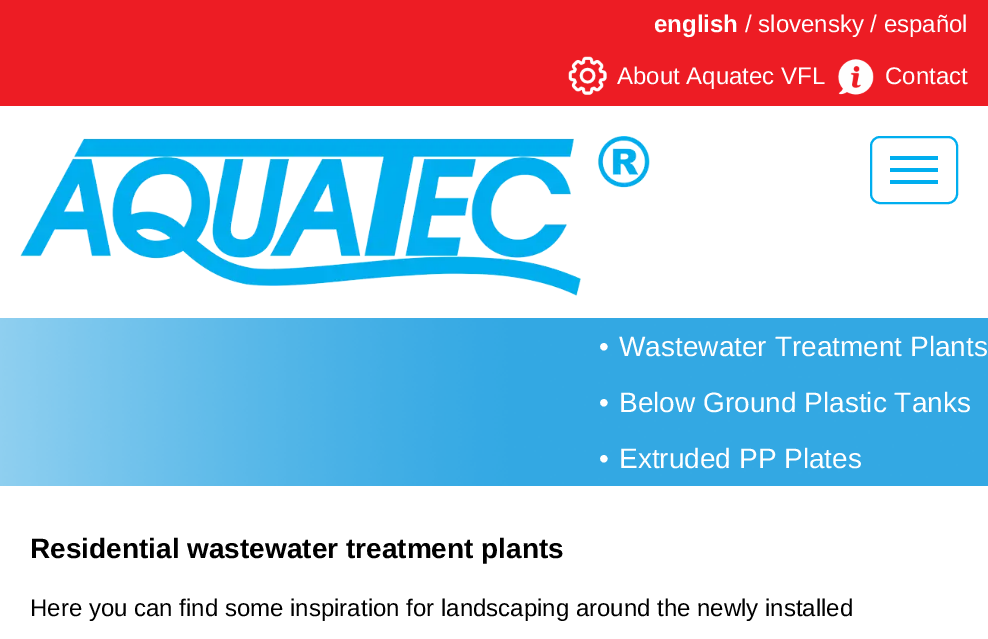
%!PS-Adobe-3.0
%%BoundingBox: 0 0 988 639
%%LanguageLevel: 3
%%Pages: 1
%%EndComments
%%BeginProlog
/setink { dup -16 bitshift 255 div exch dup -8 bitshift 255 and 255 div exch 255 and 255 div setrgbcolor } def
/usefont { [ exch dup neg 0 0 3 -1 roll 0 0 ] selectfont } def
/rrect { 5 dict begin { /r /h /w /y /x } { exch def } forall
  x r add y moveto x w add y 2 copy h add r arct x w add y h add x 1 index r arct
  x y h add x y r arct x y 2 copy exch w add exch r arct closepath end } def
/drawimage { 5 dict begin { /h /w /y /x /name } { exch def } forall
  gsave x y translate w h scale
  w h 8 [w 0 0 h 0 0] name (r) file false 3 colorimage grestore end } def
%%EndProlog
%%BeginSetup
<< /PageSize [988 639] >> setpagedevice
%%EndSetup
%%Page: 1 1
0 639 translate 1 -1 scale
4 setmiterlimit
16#FFFFFF setink
0 0 988 639 rectfill
16#ED1C24 setink
0 0 988 106 rectfill
/LiberationSans-Bold 24 usefont
16#FFFFFF setink
654 32 moveto (english) show
/LiberationSans-Regular 24 usefont
745 32 moveto (/ slovensky / español) show
(img1.raw) 568 56 39 39 drawimage
617 84 moveto (About Aquatec VFL) show
(img2.raw) 838 59 36 36 drawimage
885 84 moveto (Contact) show
(img3.raw) 20 136 630 160 drawimage
16#00AEEF setink
2 setlinewidth
871 137 86 66 9 rrect stroke
[
    [890 156 48 4 16#00AEEF]
    [890 168 48 4 16#00AEEF]
    [890 180 48 4 16#00AEEF]
] { aload pop setink rectfill } forall
(img4.raw) 0 318 988 168 drawimage
/LiberationSans-Regular 28 usefont
16#FFFFFF setink
[
    [(•) 599 356]
    [(Wastewater Treatment Plants) 619 356]
    [(•) 599 412]
    [(Below Ground Plastic Tanks) 619 412]
    [(•) 599 468]
    [(Extruded PP Plates) 619 468]
] { aload pop moveto show } forall
/LiberationSans-Bold 28 usefont
16#000000 setink
30 558 moveto (Residential wastewater treatment plants) show
/LiberationSans-Regular 24 usefont
30 616 moveto (Here you can find some inspiration for landscaping around the newly installed) show
showpage
%%EOF
